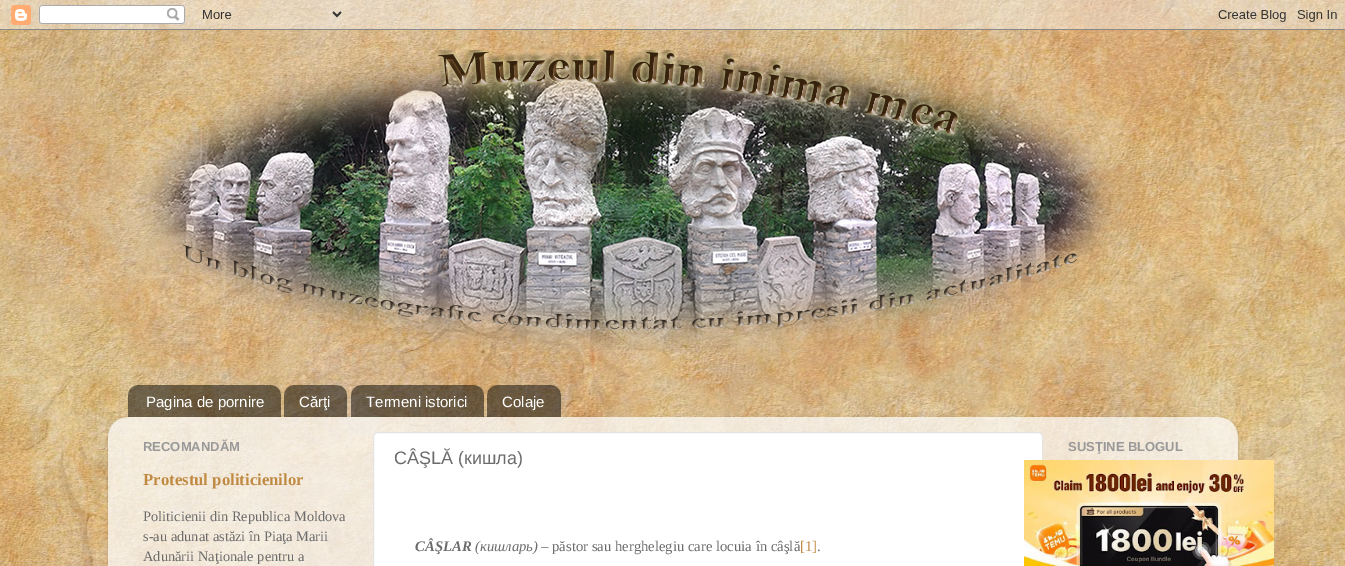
%!PS-Adobe-3.0
%%BoundingBox: 0 0 1345 566
%%LanguageLevel: 3
%%Pages: 1
%%EndComments
%%BeginProlog
/setink { dup -16 bitshift 255 div exch dup -8 bitshift 255 and 255 div exch 255 and 255 div setrgbcolor } def
/usefont { [ exch dup neg 0 0 3 -1 roll 0 0 ] selectfont } def
/setalpha { dup .setfillconstantalpha .setstrokeconstantalpha } def
/rrect { 5 dict begin { /r /h /w /y /x } { exch def } forall
  x r add y moveto x w add y 2 copy h add r arct x w add y h add x 1 index r arct
  x y h add x y r arct x y 2 copy exch w add exch r arct closepath end } def
/softshadow { 12 dict begin { /a /b /q /h /w /y /x } { exch def } forall gsave /was 0 def
  9 -2 -9 { dup b mul 4 div /e exch def 1 sub .425 mul 2.718 exch exp 1 add a .99 .min exch div /now exch def
    1 1 now sub 1 was sub div sub setalpha /was now def
    w h .min e 2 mul add 0 gt { x e sub y e sub w e 2 mul add h e 2 mul add
      q e add b .6 mul add w h .min 2 div e add .min 0 .max rrect fill } if } for grestore end } def
/drawimage { 5 dict begin { /h /w /y /x /name } { exch def } forall
  gsave x y translate w h scale
  w h 8 [w 0 0 h 0 0] name (r) file false 3 colorimage grestore end } def
%%EndProlog
%%BeginSetup
<< /PageSize [1345 566] /PageUsesTransparency true >> setpagedevice
%%EndSetup
%%Page: 1 1
0 .pushpdf14devicefilter
0 566 translate 1 -1 scale
4 setmiterlimit
16#FFFFFF setink
0 0 1345 566 rectfill
(img1.raw) 0 0 1345 566 drawimage
(img2.raw) 0 0 1345 30 drawimage
(img3.raw) 138 50 990 303 drawimage
(img4.raw) 128 385 153 32 drawimage
/LiberationSans-Regular 15 usefont
146 407 moveto (Pagina de pornire) show
(img5.raw) 284 385 63 32 drawimage
299 407 moveto (Cărţi) show
(img6.raw) 351 385 133 32 drawimage
366 407 moveto (Termeni istorici) show
(img7.raw) 487 385 74 32 drawimage
502 407 moveto (Colaje) show
gsave
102 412 moveto 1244 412 lineto 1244 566 lineto 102 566 lineto closepath 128 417 moveto 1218 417 lineto 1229 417 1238 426 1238 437 curveto 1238 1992 lineto 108 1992 lineto 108 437 lineto 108 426 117 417 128 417 curveto closepath eoclip newpath
16#000000 setink
108 418 1130 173 20 1.5 0.15 softshadow
grestore
(img8.raw) 108 417 1130 149 drawimage
/LiberationSans-Bold 13 usefont
16#999999 setink
143 451 moveto (RECOMANDĂM) show
/LiberationSerif-Bold 16.75 usefont
16#C08A42 setink
143 485 moveto (Protestul politicienilor) show
/LiberationSerif-Regular 14.4 usefont
16#6B6B6B setink
[
    [(Politicienii din Republica Moldova) 143 521]
    [(s-au adunat astăzi în Piaţa Marii) 143 541]
    [(Adunării Naţionale pentru a) 143 561]
] { aload pop moveto show } forall
16#FFFFFF setink
373.5 432.5 669 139 4.5 rrect gsave fill grestore
16#E4E4E4 setink
stroke
/LiberationSans-Regular 18 usefont
16#6B6B6B setink
394 464 moveto (CÂŞLĂ \(кишла\)) show
/LiberationSerif-BoldItalic 14.7 usefont
415 551 moveto (CÂŞLAR) show
/LiberationSerif-Italic 14.7 usefont
475 551 moveto (\(кишларь\)) show
/LiberationSerif-Regular 14.7 usefont
541 551 moveto (– păstor sau herghelegiu care locuia în câşlă) show
16#C08A42 setink
800 551 moveto ([1]) show
16#6B6B6B setink
817 551 moveto (.) show
/LiberationSans-Bold 13 usefont
16#999999 setink
1068 451 moveto (SUSŢINE BLOGUL) show
(img9.raw) 1024 460 250 106 drawimage
.poppdf14devicefilter showpage
%%EOF
